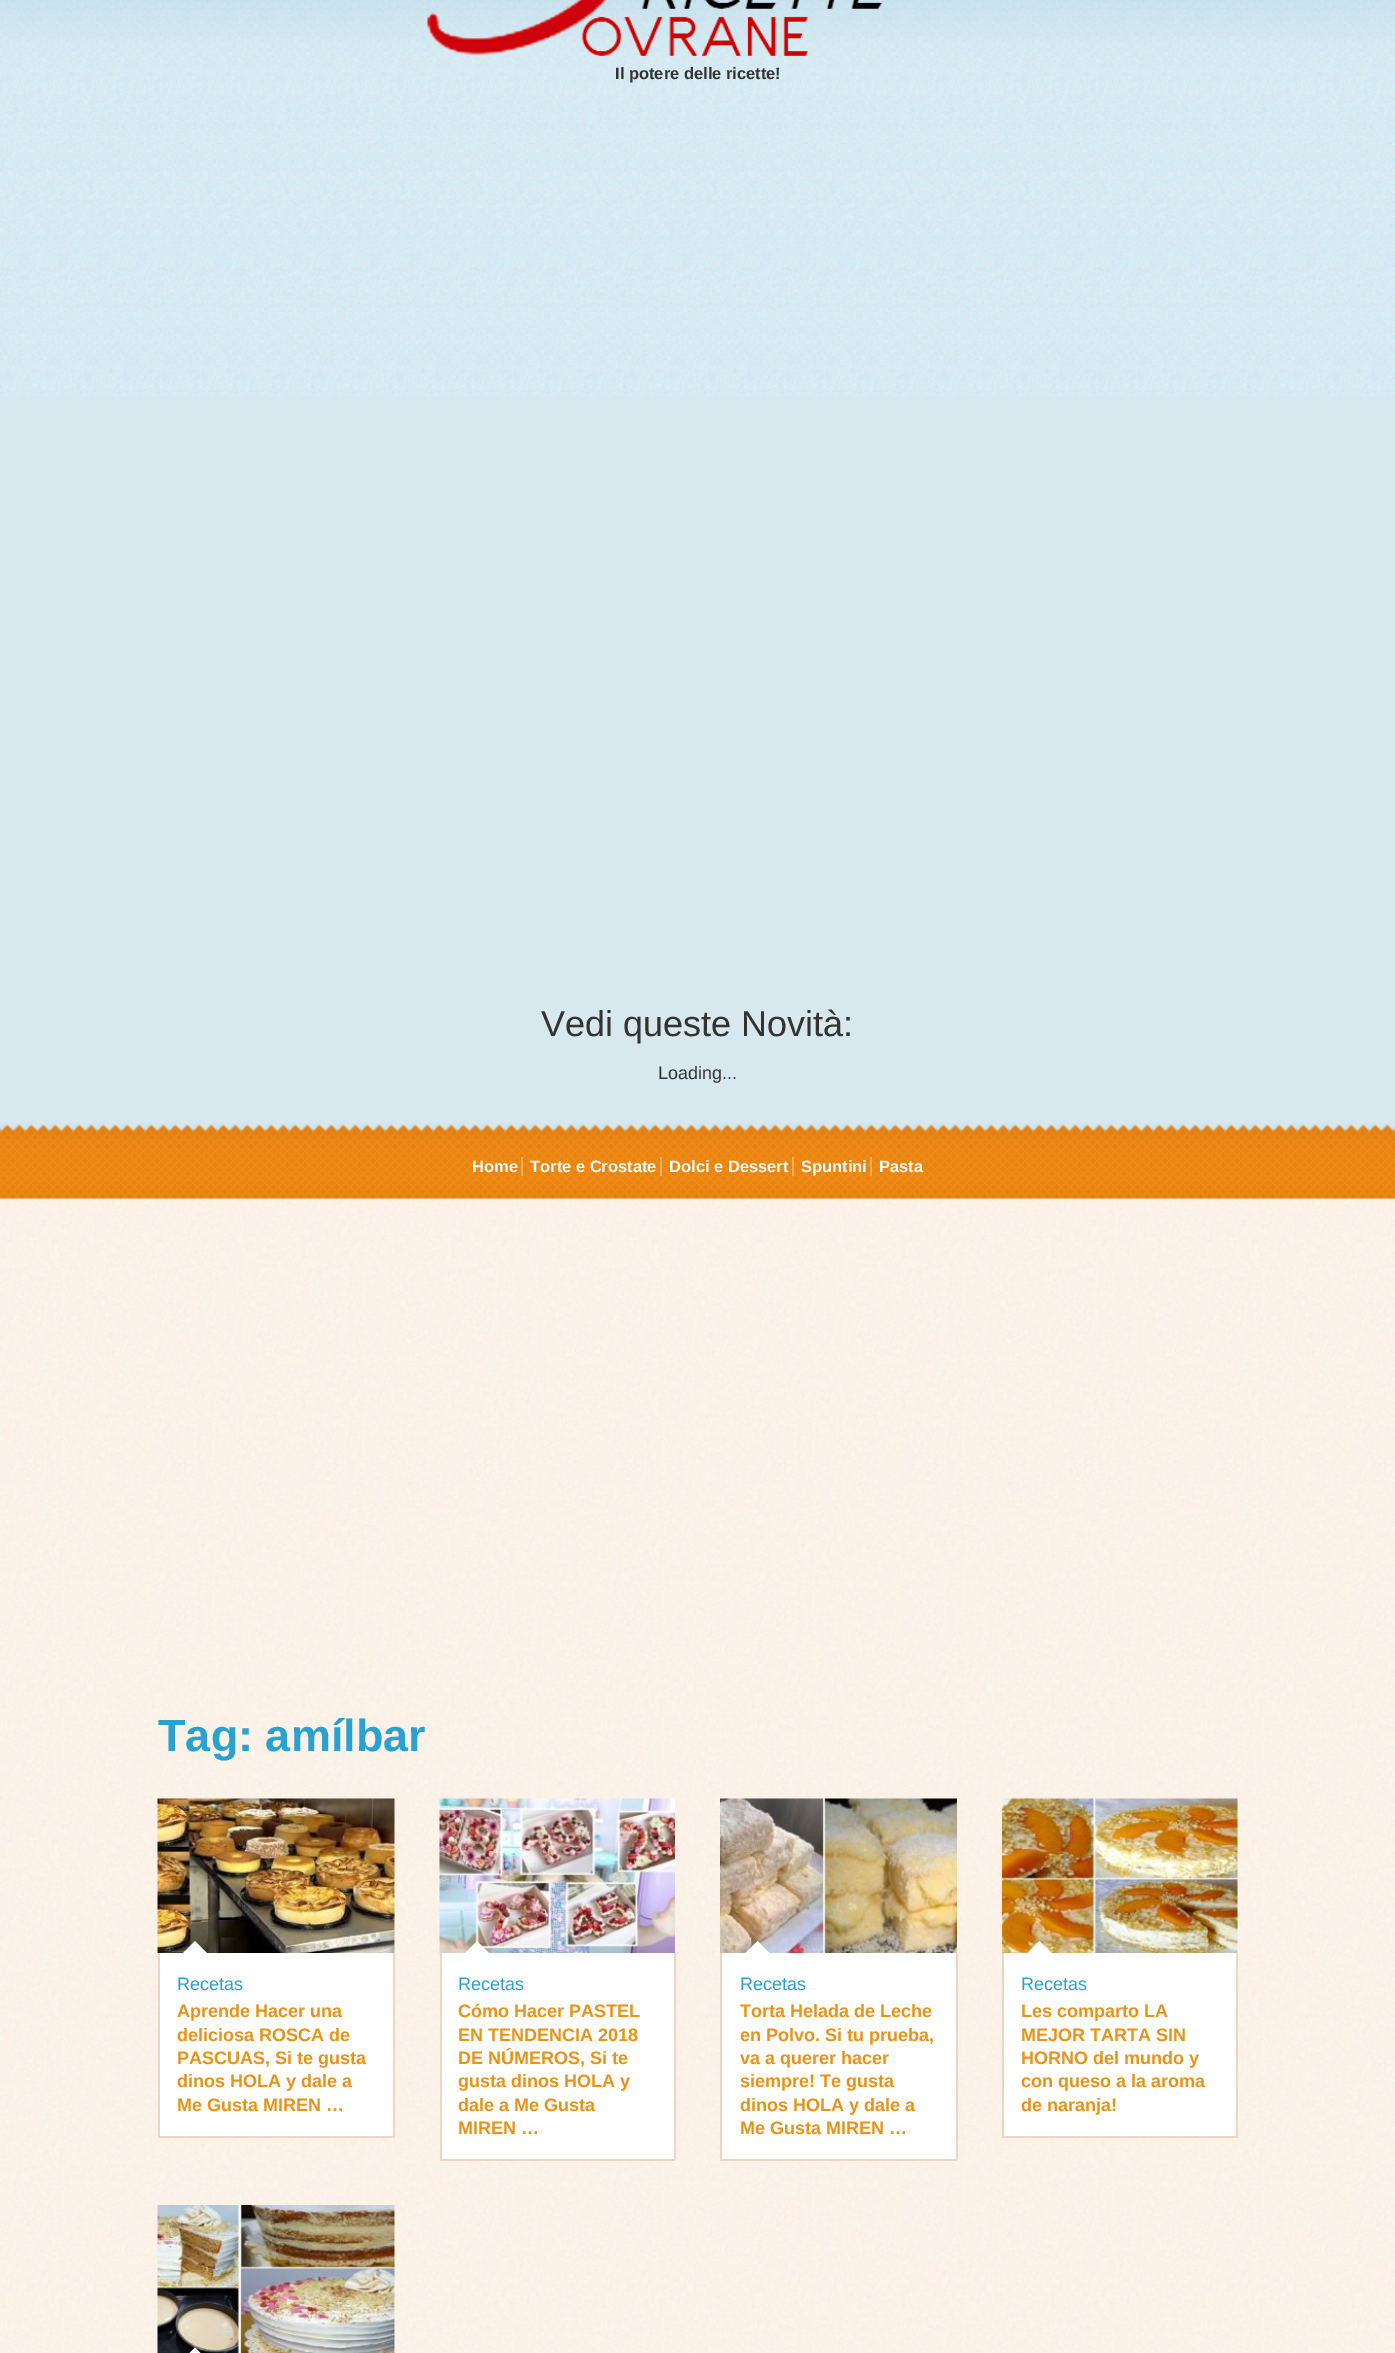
%!PS-Adobe-3.0
%%BoundingBox: 0 0 1395 2353
%%LanguageLevel: 3
%%Pages: 1
%%EndComments
%%BeginProlog
/setink { dup -16 bitshift 255 div exch dup -8 bitshift 255 and 255 div exch 255 and 255 div setrgbcolor } def
/usefont { [ exch dup neg 0 0 3 -1 roll 0 0 ] selectfont } def
/drawimage { 5 dict begin { /h /w /y /x /name } { exch def } forall
  gsave x y translate w h scale
  w h 8 [w 0 0 h 0 0] name (r) file false 3 colorimage grestore end } def
%%EndProlog
%%BeginSetup
<< /PageSize [1395 2353] >> setpagedevice
%%EndSetup
%%Page: 1 1
0 2353 translate 1 -1 scale
4 setmiterlimit
16#FFFFFF setink
0 0 1395 2353 rectfill
(img1.raw) 0 1199 1395 1154 drawimage
16#D7E8EF setink
0 396 1395 803 rectfill
(img2.raw) 0 0 1395 396 drawimage
(img3.raw) 427 0 455 56 drawimage
/LiberationSans-Bold 16.5 usefont
16#333333 setink
615 79 moveto (Il potere delle ricette!) show
/LiberationSans-Regular 36 usefont
541 1036 moveto (Vedi queste Novità:) show
/LiberationSans-Regular 18 usefont
658 1079 moveto (Loading...) show
(img4.raw) 0 1124 1395 75 drawimage
/LiberationSans-Bold 16.5 usefont
16#FFFFFF setink
472 1172 moveto (Home) show
16#F9AE60 setink
521 1157 2 19 rectfill
16#FFFFFF setink
530 1172 moveto (Torte e Crostate) show
16#F9AE60 setink
660 1157 2 19 rectfill
16#FFFFFF setink
669 1172 moveto (Dolci e Dessert) show
16#F9AE60 setink
792 1157 2 19 rectfill
16#FFFFFF setink
801 1172 moveto (Spuntini) show
16#F9AE60 setink
870 1157 2 19 rectfill
16#FFFFFF setink
879 1172 moveto (Pasta) show
/LiberationSans-Bold 45 usefont
16#29A1D2 setink
158 1751 moveto (Tag: amílbar) show
(img5.raw) 157 1798 238 155 drawimage
[
    [160 1953 233 183 16#FFFFFF]
    [393 1953 2 185 16#F1D5C3]
    [158 2136 237 2 16#F1D5C3]
    [158 1953 2 185 16#F1D5C3]
] { aload pop setink rectfill } forall
16#FFFFFF setink
207 1953 moveto 183 1953 lineto 195 1941 lineto closepath fill
/LiberationSans-Regular 18 usefont
16#29A1D2 setink
177 1990 moveto (Recetas) show
/LiberationSans-Bold 18 usefont
16#EB9115 setink
[
    [(Aprende Hacer una) 177 2017]
    [(deliciosa ROSCA de) 177 2041]
    [(PASCUAS, Si te gusta) 177 2064]
    [(dinos HOLA y dale a) 177 2087]
    [(Me Gusta MIREN …) 177 2111]
] { aload pop moveto show } forall
(img6.raw) 439 1798 236 155 drawimage
[
    [442 1953 232 206 16#FFFFFF]
    [674 1953 2 207 16#F1D5C3]
    [440 2159 235 2 16#F1D5C3]
    [440 1953 2 207 16#F1D5C3]
] { aload pop setink rectfill } forall
16#FFFFFF setink
489 1953 moveto 465 1953 lineto 477 1941 lineto closepath fill
/LiberationSans-Regular 18 usefont
16#29A1D2 setink
458 1990 moveto (Recetas) show
/LiberationSans-Bold 18 usefont
16#EB9115 setink
[
    [(Cómo Hacer PASTEL) 458 2017]
    [(EN TENDENCIA 2018) 458 2041]
    [(DE NÚMEROS, Si te) 458 2064]
    [(gusta dinos HOLA y) 458 2087]
    [(dale a Me Gusta) 458 2111]
    [(MIREN …) 458 2134]
] { aload pop moveto show } forall
(img7.raw) 720 1798 237 155 drawimage
[
    [722 1953 234 206 16#FFFFFF]
    [956 1953 2 207 16#F1D5C3]
    [720 2159 237 2 16#F1D5C3]
    [720 1953 2 207 16#F1D5C3]
] { aload pop setink rectfill } forall
16#FFFFFF setink
769.5 1953 moveto 745.5 1953 lineto 757.5 1941 lineto closepath fill
/LiberationSans-Regular 18 usefont
16#29A1D2 setink
740 1990 moveto (Recetas) show
/LiberationSans-Bold 18 usefont
16#EB9115 setink
[
    [(Torta Helada de Leche) 740 2017]
    [(en Polvo. Si tu prueba,) 740 2041]
    [(va a querer hacer) 740 2064]
    [(siempre! Te gusta) 740 2087]
    [(dinos HOLA y dale a) 740 2111]
    [(Me Gusta MIREN …) 740 2134]
] { aload pop moveto show } forall
(img8.raw) 1002 1798 236 155 drawimage
[
    [1004 1953 232 183 16#FFFFFF]
    [1236 1953 2 185 16#F1D5C3]
    [1002 2136 236 2 16#F1D5C3]
    [1002 1953 2 185 16#F1D5C3]
] { aload pop setink rectfill } forall
16#FFFFFF setink
1051.5 1953 moveto 1027.5 1953 lineto 1039.5 1941 lineto closepath fill
/LiberationSans-Regular 18 usefont
16#29A1D2 setink
1021 1990 moveto (Recetas) show
/LiberationSans-Bold 18 usefont
16#EB9115 setink
[
    [(Les comparto LA) 1021 2017]
    [(MEJOR TARTA SIN) 1021 2041]
    [(HORNO del mundo y) 1021 2064]
    [(con queso a la aroma) 1021 2087]
    [(de naranja!) 1021 2111]
] { aload pop moveto show } forall
(img9.raw) 157 2205 238 148 drawimage
16#FFFFFF setink
207 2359.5 moveto 183 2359.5 lineto 195 2347.5 lineto closepath fill
showpage
%%EOF
